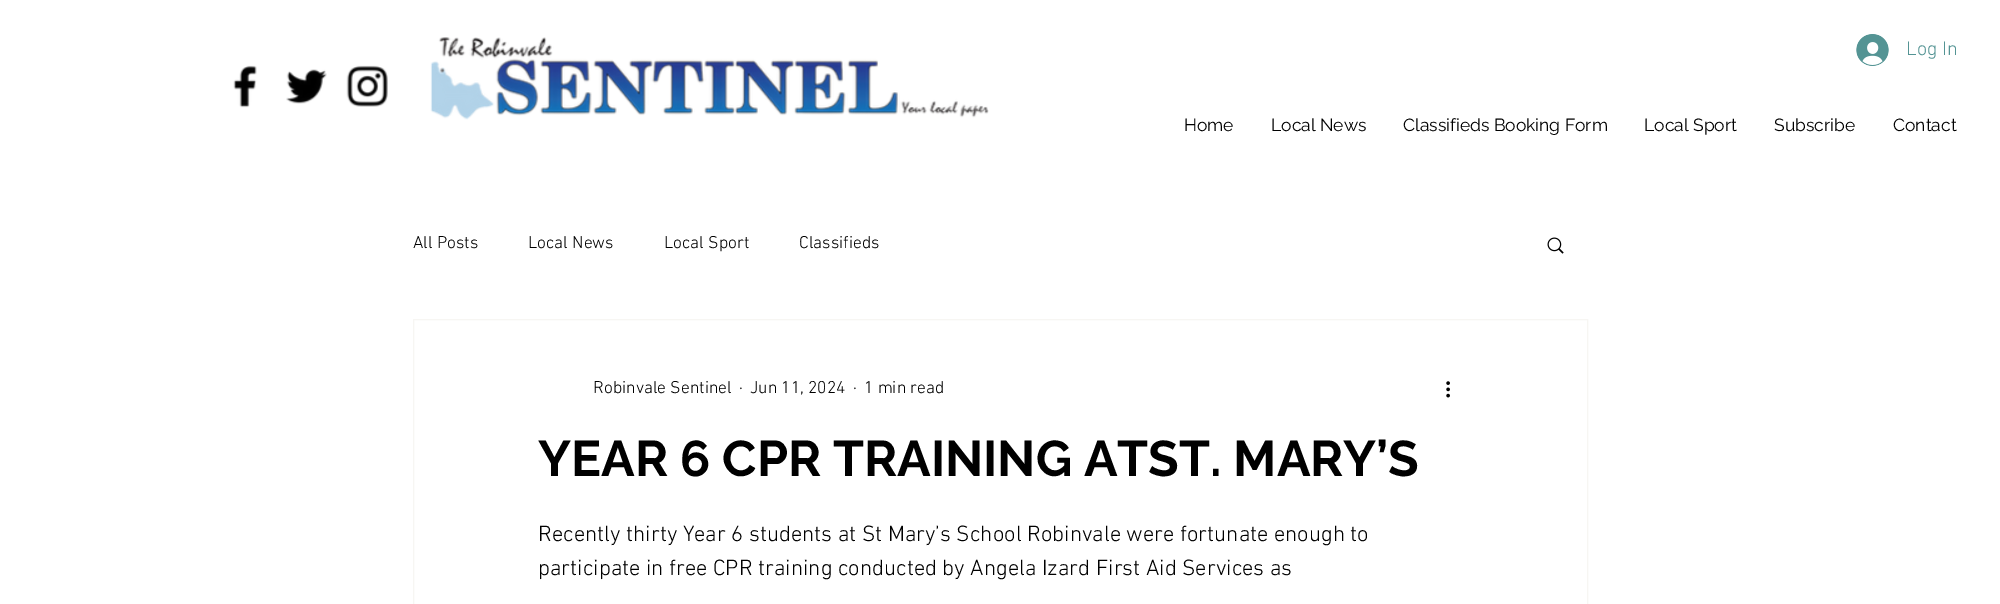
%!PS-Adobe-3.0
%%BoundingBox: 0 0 2000 604
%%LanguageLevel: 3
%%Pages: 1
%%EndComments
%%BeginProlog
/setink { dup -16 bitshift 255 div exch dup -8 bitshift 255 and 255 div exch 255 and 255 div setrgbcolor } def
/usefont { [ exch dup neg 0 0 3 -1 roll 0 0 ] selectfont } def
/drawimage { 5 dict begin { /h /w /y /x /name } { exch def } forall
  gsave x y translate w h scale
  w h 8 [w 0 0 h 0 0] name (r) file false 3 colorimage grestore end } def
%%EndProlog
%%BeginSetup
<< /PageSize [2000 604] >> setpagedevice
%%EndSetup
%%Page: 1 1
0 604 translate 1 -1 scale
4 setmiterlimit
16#FFFFFF setink
0 0 2000 604 rectfill
(img1.raw) 430 37 559 83 drawimage
(img2.raw) 1856 34 33 32 drawimage
/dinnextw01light-Light 20 usefont
16#549494 setink
1906 55 moveto (Log In) show
(img3.raw) 233 65 24 43 drawimage
(img4.raw) 286 69 41 35 drawimage
(img5.raw) 346 65 42 42 drawimage
/Raleway-Regular 17.5 usefont
16#000000 setink
[
    [(Home) 1184 131]
    [(Local News) 1271 131]
    [(Classifieds Booking Form) 1403 131]
    [(Local Sport) 1644 131]
    [(Subscribe) 1774 131]
    [(Contact) 1893 131]
] { aload pop moveto show } forall
/dinnextw01light-Light 17.5 usefont
[
    [(All Posts) 413 248]
    [(Local News) 528 248]
    [(Local Sport) 664 248]
    [(Classifieds) 799 248]
] { aload pop moveto show } forall
(img6.raw) 1547 237 17 17 drawimage
16#F7F6F3 setink
413.5 319.5 1174 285 rectstroke
16#000000 setink
[
    [(Robinvale Sentinel) 593 393]
    [(·) 739 393]
    [(Jun 11, 2024) 750 393]
    [(·) 853 393]
    [(1 min read) 864 393]
] { aload pop moveto show } forall
(img7.raw) 1446 381 4 17 drawimage
/Raleway-Bold 50 usefont
538 476 moveto (YEAR 6 CPR TRAINING ATST. MARY’S) show
/dinnextw01light-Light 22.5 usefont
538 541 moveto (Recently thirty Year 6 students at St Mary’s School Robinvale were fortunate enough to) show
538 575 moveto (participate in free CPR training conducted by Angela Izard First Aid Services as) show
showpage
%%EOF
